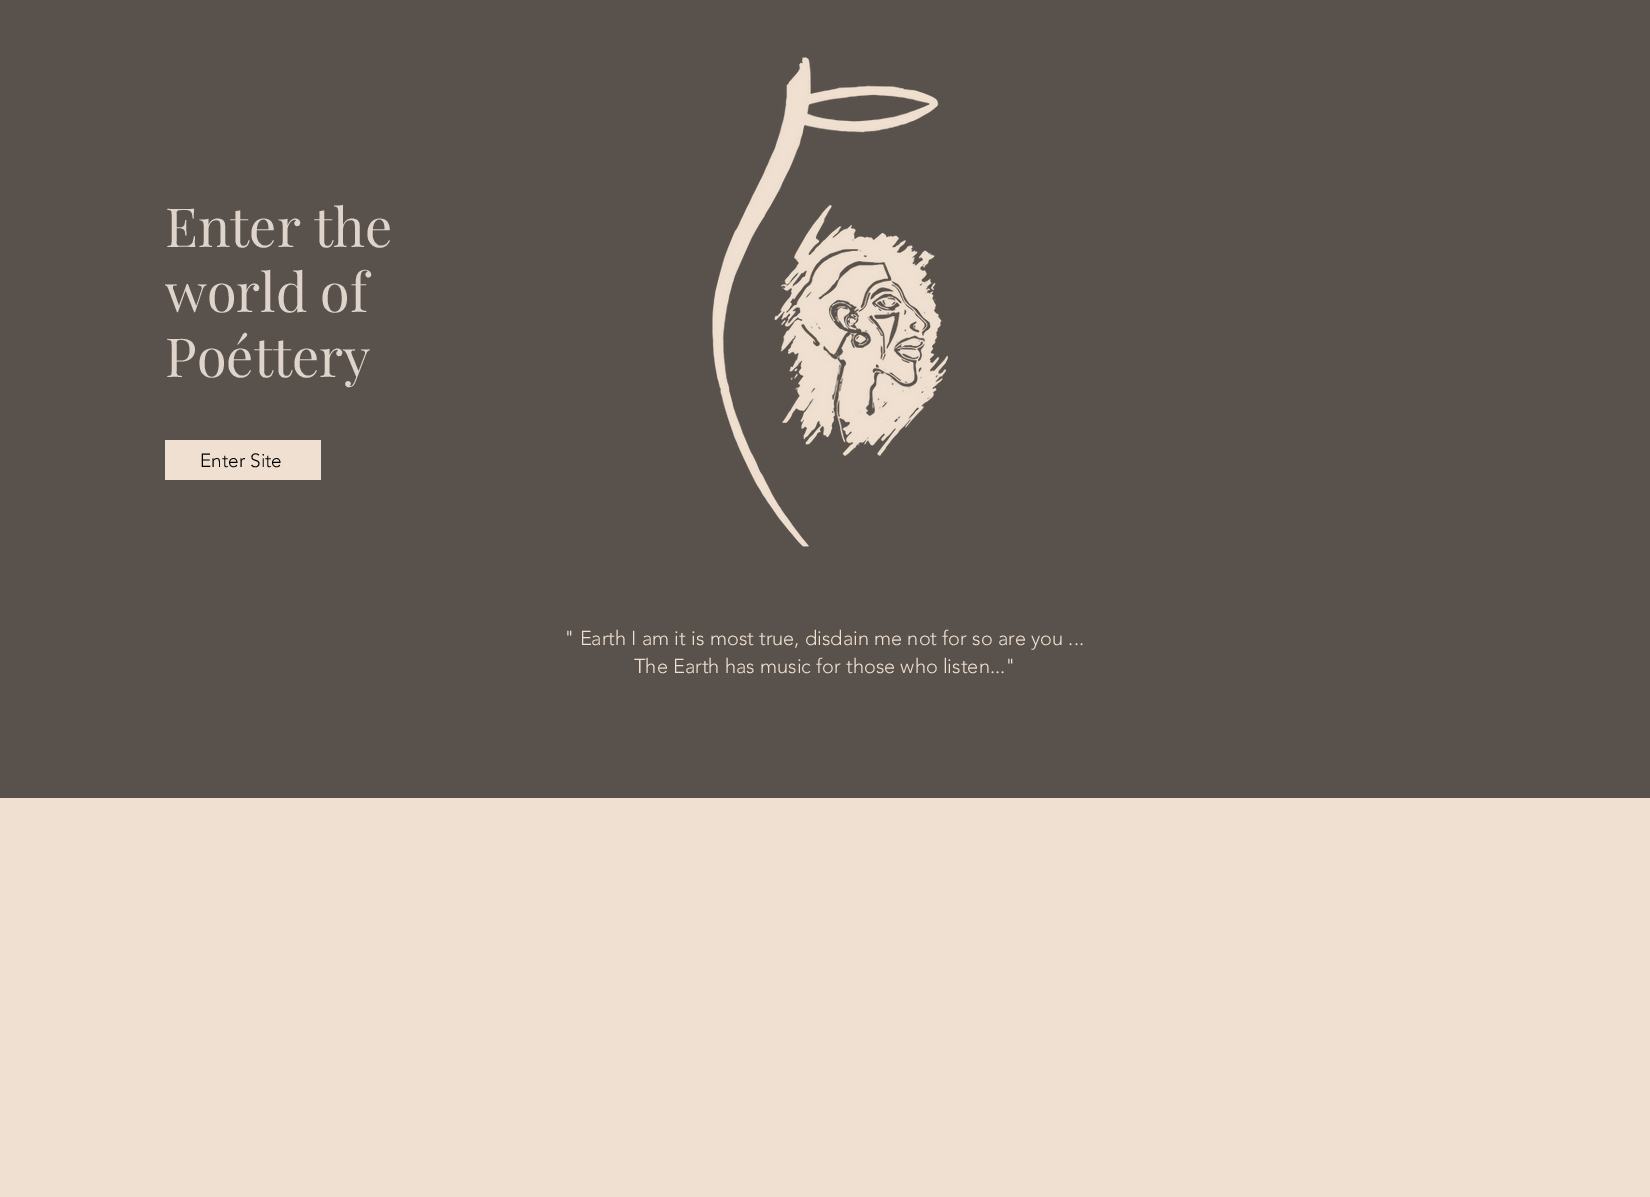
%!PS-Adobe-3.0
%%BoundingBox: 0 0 1650 1197
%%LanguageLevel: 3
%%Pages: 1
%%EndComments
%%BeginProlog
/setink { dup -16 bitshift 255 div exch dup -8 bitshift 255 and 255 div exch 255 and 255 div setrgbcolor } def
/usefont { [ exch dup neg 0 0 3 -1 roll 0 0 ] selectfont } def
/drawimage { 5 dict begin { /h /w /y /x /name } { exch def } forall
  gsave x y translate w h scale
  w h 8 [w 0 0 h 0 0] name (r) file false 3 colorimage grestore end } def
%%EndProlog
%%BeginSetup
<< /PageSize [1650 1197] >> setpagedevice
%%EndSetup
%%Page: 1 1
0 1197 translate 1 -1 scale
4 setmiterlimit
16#F0E0D1 setink
0 0 1650 1197 rectfill
16#59524C setink
0 0 1650 798 rectfill
/PlayfairDisplay-Regular 54 usefont
16#DED4CB setink
[
    [(Enter the) 165 247]
    [(world of) 165 312]
    [(Poéttery) 165 377]
] { aload pop moveto show } forall
(img1.raw) 712 57 236 490 drawimage
16#F0E0D1 setink
165 440 156 40 rectfill
/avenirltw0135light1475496-Light 19 usefont
16#000000 setink
200 467 moveto (Enter Site) show
/avenirltw0135light1475496-Light 20 usefont
16#F0E0D1 setink
564 645 moveto (" Earth I am it is most true, disdain me not for so are you ...) show
634 673 moveto (The Earth has music for those who listen...") show
showpage
%%EOF
